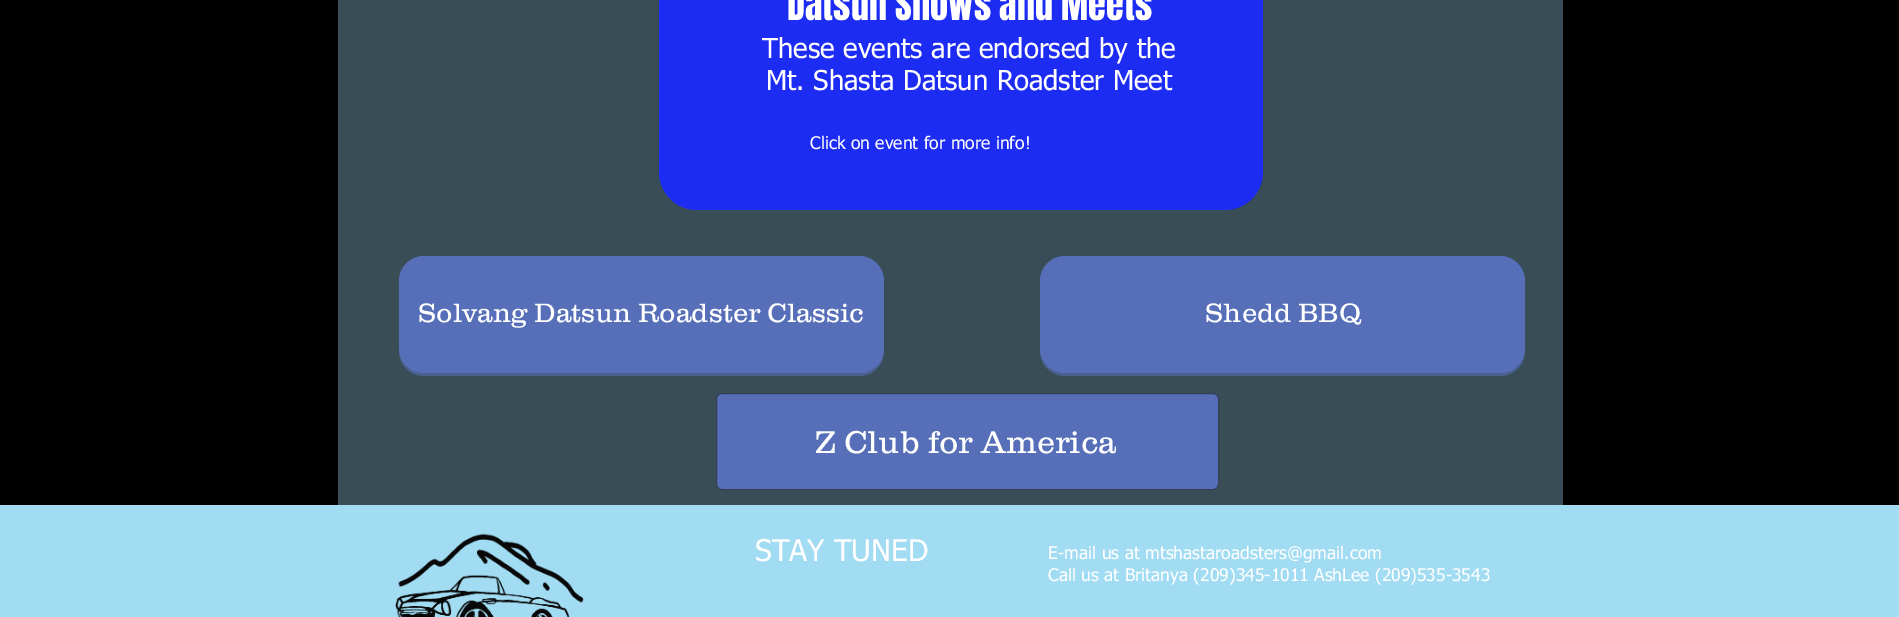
%!PS-Adobe-3.0
%%BoundingBox: 0 0 1899 617
%%LanguageLevel: 3
%%Pages: 1
%%EndComments
%%BeginProlog
/setink { dup -16 bitshift 255 div exch dup -8 bitshift 255 and 255 div exch 255 and 255 div setrgbcolor } def
/usefont { [ exch dup neg 0 0 3 -1 roll 0 0 ] selectfont } def
/rrect { 5 dict begin { /r /h /w /y /x } { exch def } forall
  x r add y moveto x w add y 2 copy h add r arct x w add y h add x 1 index r arct
  x y h add x y r arct x y 2 copy exch w add exch r arct closepath end } def
/drawimage { 5 dict begin { /h /w /y /x /name } { exch def } forall
  gsave x y translate w h scale
  w h 8 [w 0 0 h 0 0] name (r) file false 3 colorimage grestore end } def
%%EndProlog
%%BeginSetup
<< /PageSize [1899 617] >> setpagedevice
%%EndSetup
%%Page: 1 1
0 617 translate 1 -1 scale
4 setmiterlimit
16#000000 setink
0 0 1899 617 rectfill
16#384D55 setink
338 0 1225 505 rectfill
16#1D2CF3 setink
659 -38 604 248 38 rrect fill
/Anton-Regular 36.25 usefont
16#FFFFFF setink
787 20 moveto (Datsun Shows and Meets) show
/tahoma-Regular 27.5 usefont
762 58 moveto (These events are endorsed by the) show
766 90 moveto (Mt. Shasta Datsun Roadster Meet) show
/tahoma-Regular 17.5 usefont
810 149 moveto (Click on event for more info!) show
16#4A6190 setink
399 351 moveto 399 365 410 376 424 376 curveto 859 376 lineto 873 376 884 365 884 351 curveto 884 281 lineto 884 348 lineto 884 361 873 372 859 372 curveto 424 372 lineto 411 372 401 363 399 351 curveto closepath fill
16#566FB8 setink
399 256 485 117 25 rrect fill
/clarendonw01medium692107-Light 27.5 usefont
16#FFFFFF setink
418 322 moveto (Solvang Datsun Roadster Classic) show
16#4A6190 setink
1040 348 moveto 1040 351 lineto 1040 365 1051 376 1065 376 curveto 1500 376 lineto 1514 376 1525 365 1525 351 curveto 1525 348 lineto 1525 361 1514 372 1500 372 curveto 1065 372 lineto 1051 372 1040 361 1040 348 curveto closepath fill
16#566FB8 setink
1040 256 485 117 25 rrect fill
16#FFFFFF setink
1205 322 moveto (Shedd BBQ) show
16#566FB8 setink
716.5 393.5 502 96 5.5 rrect gsave fill grestore
16#324158 setink
stroke
gsave
815 423 301 36 rectclip
/clarendonw01medium692107-Light 32.5 usefont
16#FFFFFF setink
815 453 moveto (Z Club for America) show
grestore
16#A1DCF2 setink
0 505 1899 112 rectfill
(img1.raw) 395 533 189 84 drawimage
/tahoma-Regular 30 usefont
16#FFFFFF setink
755 561 moveto (STAY TUNED) show
/tahoma-Regular 17.5 usefont
1048 559 moveto (E-mail us at mtshastaroadsters@gmail.com) show
1048 581 moveto (Call us at Britanya \(209\)345-1011 AshLee \(209\)535-3543) show
showpage
%%EOF
